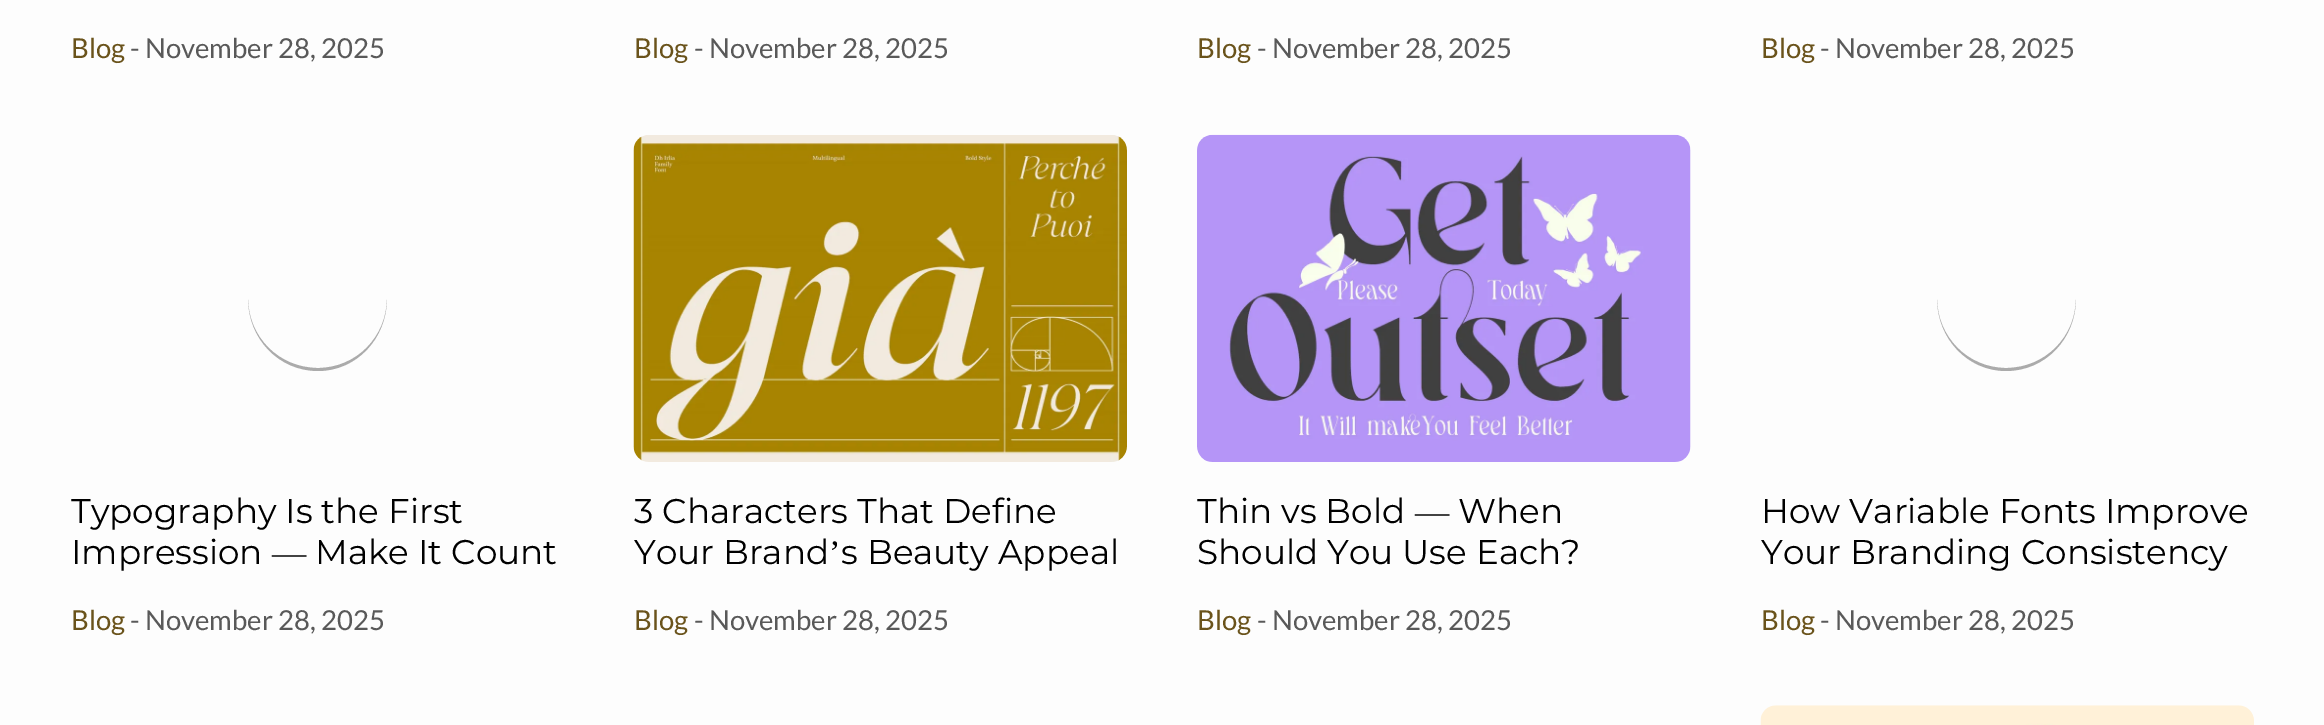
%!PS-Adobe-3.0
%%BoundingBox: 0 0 2324 725
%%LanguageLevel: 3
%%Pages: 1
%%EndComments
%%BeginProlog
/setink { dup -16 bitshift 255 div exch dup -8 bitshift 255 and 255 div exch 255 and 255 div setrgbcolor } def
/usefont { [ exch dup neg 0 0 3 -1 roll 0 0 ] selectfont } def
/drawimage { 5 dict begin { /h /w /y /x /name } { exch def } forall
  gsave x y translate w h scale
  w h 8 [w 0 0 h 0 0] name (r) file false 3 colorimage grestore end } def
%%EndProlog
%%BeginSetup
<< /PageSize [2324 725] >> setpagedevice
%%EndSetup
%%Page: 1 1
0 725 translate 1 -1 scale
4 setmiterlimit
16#FDFDFD setink
0 0 2324 725 rectfill
/Lato-Regular 27.5 usefont
16#6A531B setink
71 58 moveto (Blog) show
16#595959 setink
130 58 moveto (- November 28, 2025) show
16#6A531B setink
634 58 moveto (Blog) show
16#595959 setink
694 58 moveto (- November 28, 2025) show
16#6A531B setink
1197 58 moveto (Blog) show
16#595959 setink
1257 58 moveto (- November 28, 2025) show
16#6A531B setink
1761 58 moveto (Blog) show
16#595959 setink
1820 58 moveto (- November 28, 2025) show
16#ABABAB setink
248 298 moveto 248 337 279 368 318 368 curveto 356 368 387 337 387 298 curveto 387 339 356 371 318 371 curveto 279 371 248 339 248 298 curveto fill
/Montserrat-Regular 34.25 usefont
16#000000 setink
71 523 moveto (Typography Is the First) show
71 564 moveto (Impression) show
/LiberationSerif-Regular 34.25 usefont
272 564 moveto (—) show
/Montserrat-Regular 34.25 usefont
315 564 moveto (Make It Count) show
/Lato-Regular 27.5 usefont
16#6A531B setink
71 630 moveto (Blog) show
16#595959 setink
130 630 moveto (- November 28, 2025) show
(img1.raw) 633 135 494 327 drawimage
/Montserrat-Regular 34.25 usefont
16#000000 setink
634 523 moveto (3 Characters That Define) show
634 564 moveto (Your Brand) show
/LiberationSerif-Regular 34.25 usefont
829 564 moveto (’) show
/Montserrat-Regular 34.25 usefont
841 564 moveto (s Beauty Appeal) show
/Lato-Regular 27.5 usefont
16#6A531B setink
634 630 moveto (Blog) show
16#595959 setink
694 630 moveto (- November 28, 2025) show
(img2.raw) 1197 134 494 328 drawimage
/Montserrat-Regular 34.25 usefont
16#000000 setink
1197 523 moveto (Thin vs Bold) show
/LiberationSerif-Regular 34.25 usefont
1415 523 moveto (—) show
/Montserrat-Regular 34.25 usefont
1458 523 moveto (When) show
1197 564 moveto (Should You Use Each?) show
/Lato-Regular 27.5 usefont
16#6A531B setink
1197 630 moveto (Blog) show
16#595959 setink
1257 630 moveto (- November 28, 2025) show
16#ABABAB setink
1937 298 moveto 1937 337 1968 368 2006 368 curveto 2045 368 2076 337 2076 298 curveto 2076 339 2045 371 2006 371 curveto 1968 371 1937 339 1937 298 curveto fill
/Montserrat-Regular 34.25 usefont
16#000000 setink
1761 523 moveto (How Variable Fonts Improve) show
1761 564 moveto (Your Branding Consistency) show
/Lato-Regular 27.5 usefont
16#6A531B setink
1761 630 moveto (Blog) show
16#595959 setink
1820 630 moveto (- November 28, 2025) show
(img3.raw) 1760 705 494 20 drawimage
showpage
%%EOF
